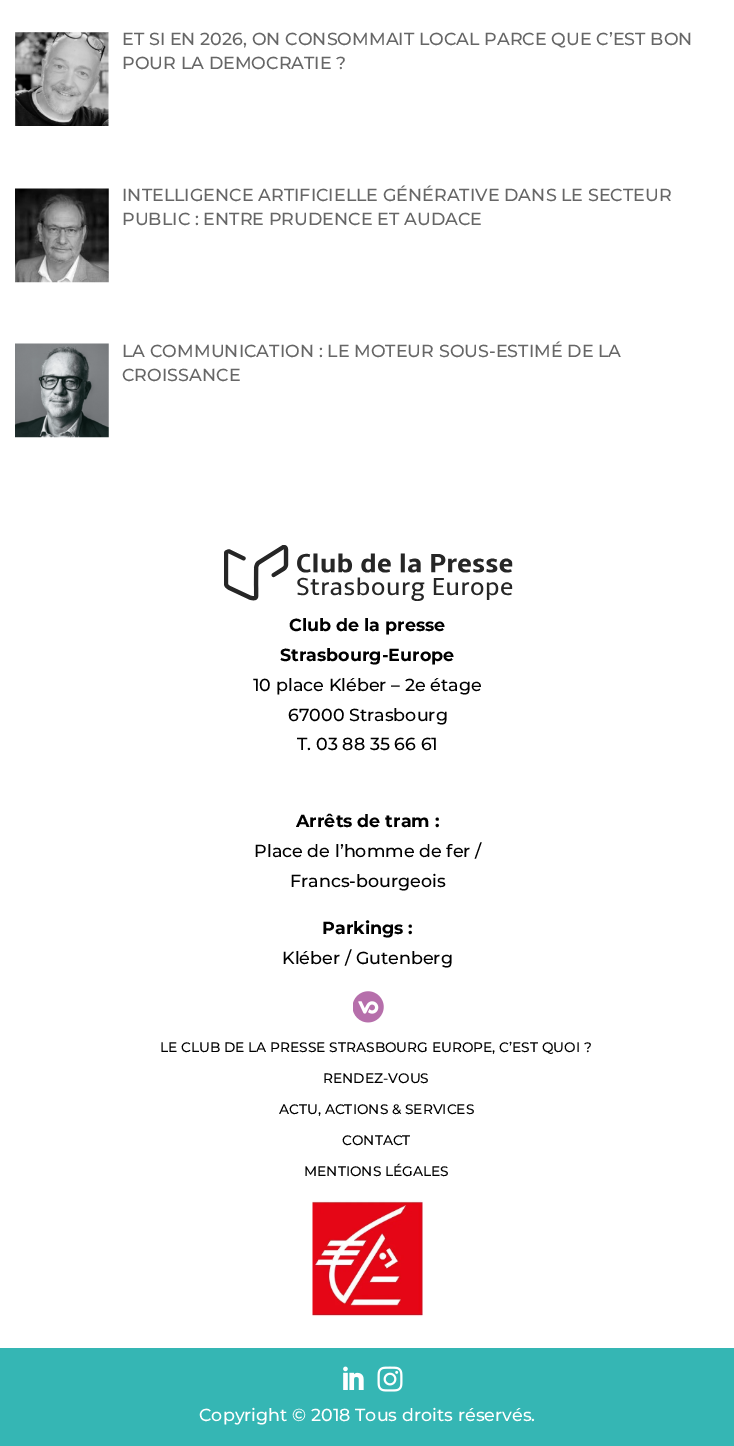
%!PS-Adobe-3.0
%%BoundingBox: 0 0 734 1446
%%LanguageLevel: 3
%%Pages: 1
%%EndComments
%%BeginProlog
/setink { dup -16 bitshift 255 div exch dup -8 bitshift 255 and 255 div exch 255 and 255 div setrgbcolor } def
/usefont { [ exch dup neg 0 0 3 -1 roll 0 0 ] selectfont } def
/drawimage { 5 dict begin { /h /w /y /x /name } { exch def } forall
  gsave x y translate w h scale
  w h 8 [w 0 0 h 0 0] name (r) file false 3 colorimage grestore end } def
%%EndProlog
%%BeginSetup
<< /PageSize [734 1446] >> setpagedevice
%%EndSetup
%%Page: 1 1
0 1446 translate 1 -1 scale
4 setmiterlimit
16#FFFFFF setink
0 0 734 1446 rectfill
(img1.raw) 15 32 94 94 drawimage
/Montserrat-Thin 17.5 usefont
16#666666 setink
122 45 moveto (ET SI EN 2026, ON CONSOMMAIT LOCAL PARCE QUE C’EST BON) show
122 69 moveto (POUR LA DEMOCRATIE ?) show
(img2.raw) 15 188 94 95 drawimage
122 201 moveto (INTELLIGENCE ARTIFICIELLE GÉNÉRATIVE DANS LE SECTEUR) show
122 225 moveto (PUBLIC : ENTRE PRUDENCE ET AUDACE) show
(img3.raw) 15 343 94 95 drawimage
122 357 moveto (LA COMMUNICATION : LE MOTEUR SOUS-ESTIMÉ DE LA) show
122 381 moveto (CROISSANCE) show
(img4.raw) 224 545 289 56 drawimage
/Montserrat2-Thin 17.5 usefont
16#000000 setink
289 631 moveto (Club de la presse) show
280 661 moveto (Strasbourg-Europe) show
/Montserrat-Thin 17.5 usefont
[
    [(10 place Kléber – 2e étage) 253 691]
    [(67000 Strasbourg) 288 721]
    [(T. 03 88 35 66 61) 297 750]
] { aload pop moveto show } forall
/Montserrat2-Thin 17.5 usefont
296 827 moveto (Arrêts de tram :) show
/Montserrat-Thin 17.5 usefont
254 857 moveto (Place de l’homme de fer /) show
290 887 moveto (Francs-bourgeois) show
/Montserrat2-Thin 17.5 usefont
322 934 moveto (Parkings :) show
/Montserrat-Thin 17.5 usefont
282 964 moveto (Kléber / Gutenberg) show
(img5.raw) 353 991 31 32 drawimage
/Montserrat-Thin 13.75 usefont
[
    [(LE CLUB DE LA PRESSE STRASBOURG EUROPE, C’EST QUOI ?) 160 1052]
    [(RENDEZ-VOUS) 323 1083]
    [(ACTU, ACTIONS & SERVICES) 279 1114]
    [(CONTACT) 342 1145]
    [(MENTIONS LÉGALES) 304 1176]
] { aload pop moveto show } forall
(img6.raw) 312 1200 111 117 drawimage
16#35B6B4 setink
0 1348 734 98 rectfill
(img7.raw) 343 1366 21 24 drawimage
(img8.raw) 377 1366 26 26 drawimage
/Montserrat-Thin 17.5 usefont
16#FFFFFF setink
199 1421 moveto (Copyright © 2018 Tous droits réservés.) show
showpage
%%EOF
